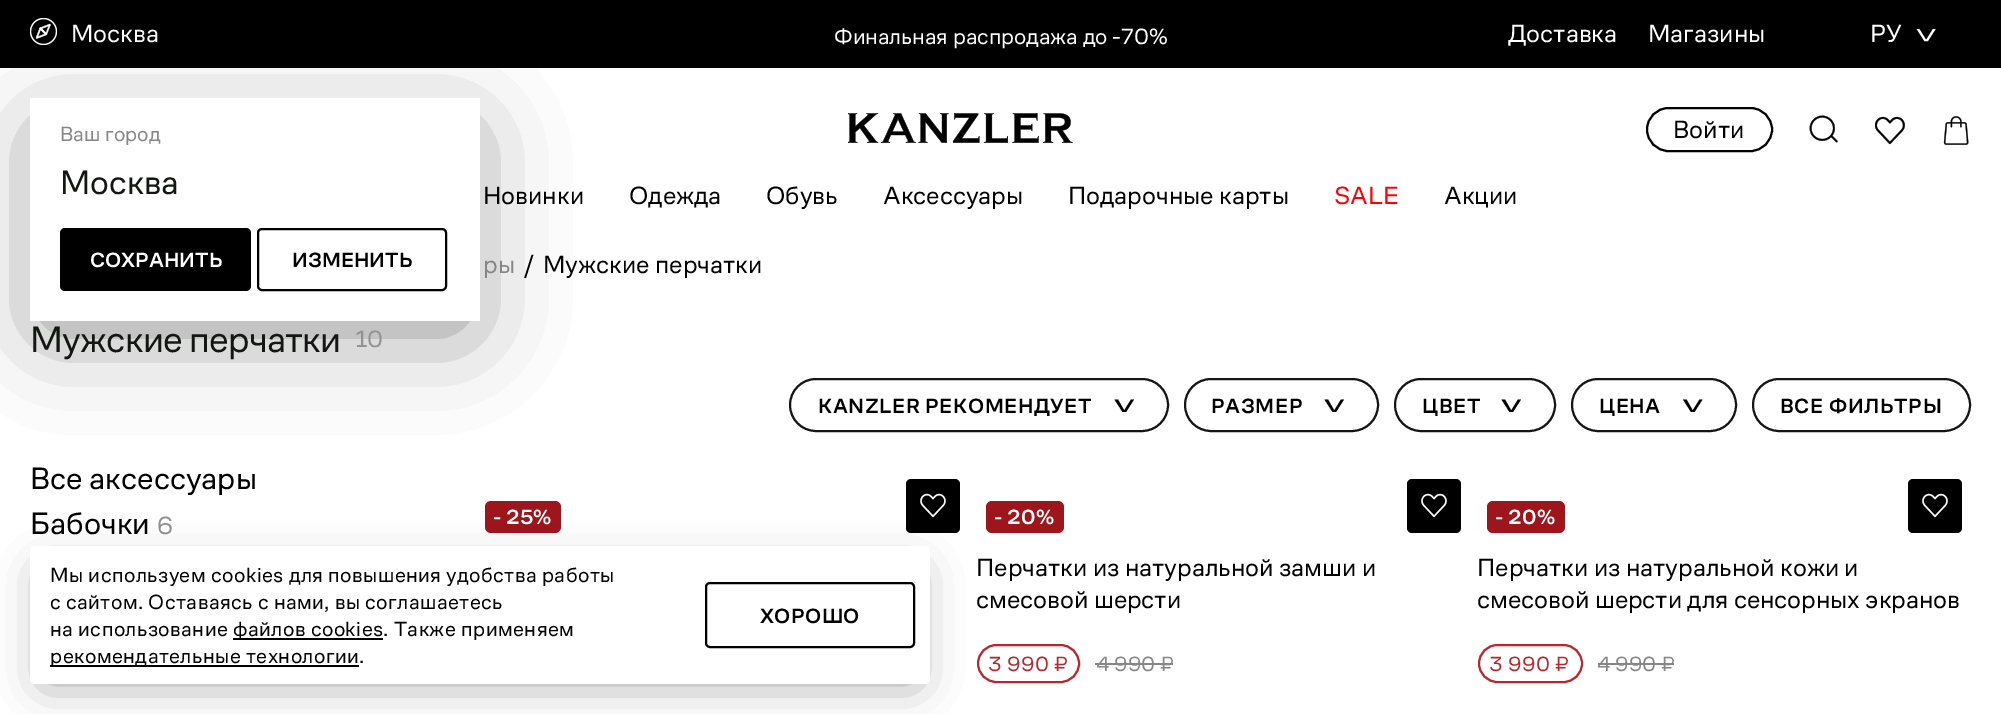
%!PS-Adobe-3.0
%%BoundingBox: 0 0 2001 714
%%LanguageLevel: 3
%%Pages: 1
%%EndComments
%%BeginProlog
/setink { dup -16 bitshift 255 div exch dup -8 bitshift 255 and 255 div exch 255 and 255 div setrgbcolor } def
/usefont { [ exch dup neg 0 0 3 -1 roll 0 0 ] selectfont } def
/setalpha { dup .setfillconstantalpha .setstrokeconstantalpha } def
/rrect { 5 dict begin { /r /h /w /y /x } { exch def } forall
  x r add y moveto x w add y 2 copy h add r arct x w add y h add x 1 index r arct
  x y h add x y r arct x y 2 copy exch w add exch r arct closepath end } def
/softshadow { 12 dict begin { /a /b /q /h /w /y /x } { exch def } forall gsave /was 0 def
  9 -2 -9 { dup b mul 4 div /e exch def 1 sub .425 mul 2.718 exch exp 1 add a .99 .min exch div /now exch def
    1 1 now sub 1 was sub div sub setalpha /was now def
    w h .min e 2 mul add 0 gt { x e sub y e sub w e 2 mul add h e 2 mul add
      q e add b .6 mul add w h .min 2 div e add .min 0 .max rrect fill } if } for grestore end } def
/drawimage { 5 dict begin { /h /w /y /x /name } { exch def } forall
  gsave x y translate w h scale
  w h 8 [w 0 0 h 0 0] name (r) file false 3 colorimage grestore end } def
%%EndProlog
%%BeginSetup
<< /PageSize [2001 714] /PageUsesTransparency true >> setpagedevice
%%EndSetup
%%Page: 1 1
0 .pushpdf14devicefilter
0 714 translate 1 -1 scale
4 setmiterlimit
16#FFFFFF setink
0 0 2001 714 rectfill
16#000000 setink
0 0 2001 68 rectfill
(img1.raw) 30 18 27 27 drawimage
/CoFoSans-Regular 25.5 usefont
16#FFFFFF setink
71 42 moveto (Москва) show
16#000000 setink
45 134 420 193 0 48 0.45 softshadow
16#FFFFFF setink
30 98 450 223 rectfill
/CoFoSans-Regular 21 usefont
16#868686 setink
60 141 moveto (Ваш город) show
/CoFoSans-Regular 34.5 usefont
16#131613 setink
60 194 moveto (Москва) show
16#000000 setink
60 228 191 63 5 rrect fill
/CoFoSans-Medium 21 usefont
16#FFFFFF setink
90 267 moveto (СОХРАНИТЬ) show
16#000000 setink
2 setlinewidth
258 229 188 61 4 rrect stroke
292 267 moveto (ИЗМЕНИТЬ) show
/CoFoSans-Regular 22.5 usefont
16#FFFFFF setink
834 44 moveto (Финальная распродажа до -70%) show
/CoFoSans-Regular 25.5 usefont
[
    [(Доставка) 1508 42]
    [(Магазины) 1648 42]
    [(РУ) 1870 42]
] { aload pop moveto show } forall
(img2.raw) 1916 29 20 13 drawimage
(img3.raw) 848 113 225 30 drawimage
16#000000 setink
1647 108 125 43 21.5 rrect stroke
1673 138 moveto (Войти) show
(img4.raw) 1809 115 29 28 drawimage
(img5.raw) 1875 116 30 29 drawimage
(img6.raw) 1943 116 26 29 drawimage
[
    [(Новинки) 483 204]
    [(Одежда) 629 204]
    [(Обувь) 766 204]
    [(Аксессуары) 883 204]
    [(Подарочные карты) 1068 204]
] { aload pop moveto show } forall
16#FF0000 setink
1334 204 moveto (SALE) show
16#000000 setink
1444 204 moveto (Акции) show
16#868686 setink
483 273 moveto (ры) show
16#000000 setink
522 273 moveto (/) show
543 273 moveto (Мужские перчатки) show
/CoFoSans-Regular 37.5 usefont
16#131613 setink
30 352 moveto -0.75 0 (Мужские перчатки) ashow
/CoFoSans-Regular 24 usefont
16#929292 setink
355 347 moveto (10) show
/CoFoSans-Regular 31.5 usefont
16#000000 setink
30 489 moveto (Все аксессуары) show
30 534 moveto (Бабочки) show
/CoFoSans-Regular 25.5 usefont
16#929292 setink
157 534 moveto (6) show
16#131613 setink
790 379 378 52 26 rrect stroke
/CoFoSans-Medium 21 usefont
16#000000 setink
818 413 moveto 0.6 0 (KANZLER РЕКОМЕНДУЕТ) ashow
1114.5 399.5 moveto 1118 399.5 lineto 1124 410 lineto 1124.5 410 lineto 1131 399.5 lineto 1134 399.5 lineto 1126 412 lineto 1122.5 412 lineto closepath fill
16#131613 setink
1185 379 193 52 26 rrect stroke
16#000000 setink
1211 413 moveto 0.6 0 (РАЗМЕР) ashow
1324.5 399.5 moveto 1328 399.5 lineto 1334 410 lineto 1334.5 410 lineto 1341 399.5 lineto 1344 399.5 lineto 1336 412 lineto 1332.5 412 lineto closepath fill
16#131613 setink
1395 379 160 52 26 rrect stroke
16#000000 setink
1422 413 moveto 0.6 0 (ЦВЕТ) ashow
1501.5 399.5 moveto 1505 399.5 lineto 1511 410 lineto 1511.5 410 lineto 1518 399.5 lineto 1521 399.5 lineto 1513 412 lineto 1509.5 412 lineto closepath fill
16#131613 setink
1572 379 164 52 26 rrect stroke
16#000000 setink
1599 413 moveto 0.6 0 (ЦЕНА) ashow
1683 399.5 moveto 1686.5 399.5 lineto 1692.5 410 lineto 1693 410 lineto 1699.5 399.5 lineto 1702.5 399.5 lineto 1694.5 412 lineto 1691 412 lineto closepath fill
16#131613 setink
1753 379 217 52 26 rrect stroke
16#000000 setink
1780 413 moveto 0.6 0 (ВСЕ ФИЛЬТРЫ) ashow
16#9E151C setink
485 501 76 32 6 rrect fill
16#FFFFFF setink
493 524 moveto 0.25 0 (- 25%) ashow
16#000000 setink
906 479 54 54 5 rrect fill
(img7.raw) 920 493 26 25 drawimage
16#9E151C setink
986 501 78 32 6 rrect fill
16#FFFFFF setink
994 524 moveto 0.25 0 (- 20%) ashow
16#000000 setink
1407 479 54 54 5 rrect fill
(img7.raw) 1421 493 26 25 drawimage
/CoFoSans-Regular 25.5 usefont
976 576 moveto (Перчатки из натуральной замши и) show
976 608 moveto (смесовой шерсти) show
16#B7272D setink
978 645 101 37 18.5 rrect stroke
/CoFoSans-Regular 21 usefont
988 671 moveto 0.42 0 (3 990 ₽) ashow
16#868686 setink
1096 671 moveto (4 990 ₽) show
1095 663 78 2 rectfill
16#9E151C setink
1487 501 78 32 6 rrect fill
/CoFoSans-Medium 21 usefont
16#FFFFFF setink
1495 524 moveto 0.25 0 (- 20%) ashow
16#000000 setink
1908 479 54 54 5 rrect fill
(img7.raw) 1922 493 26 25 drawimage
/CoFoSans-Regular 25.5 usefont
1477 576 moveto (Перчатки из натуральной кожи и) show
1477 608 moveto (смесовой шерсти для сенсорных экранов) show
16#B7272D setink
1479 645 103 37 18.5 rrect stroke
/CoFoSans-Regular 21 usefont
1489 671 moveto 0.42 0 (3 990 ₽) ashow
16#868686 setink
1597 671 moveto (4 990 ₽) show
1598 663 76 2 rectfill
16#000000 setink
45 573 870 108 0 22.5 0.4 softshadow
16#FFFFFF setink
30 546 900 138 5 rrect fill
16#000000 setink
50 582 moveto 0.42 0 (Мы используем cookies для повышения удобства работы) ashow
50 609 moveto 0.42 0 (с сайтом. Оставаясь с нами, вы соглашаетесь) ashow
50 636 moveto 0.42 0 (на использование) ashow
233 638 150 2 rectfill
233 636 moveto 0.42 0 (файлов cookies. Также применяем) ashow
50 665 309 2 rectfill
50 663 moveto 0.42 0 (рекомендательные технологии.) ashow
706 583 208 64 4 rrect stroke
/CoFoSans-Medium 21 usefont
760 623 moveto 0.42 0 (ХОРОШО) ashow
.poppdf14devicefilter showpage
%%EOF
